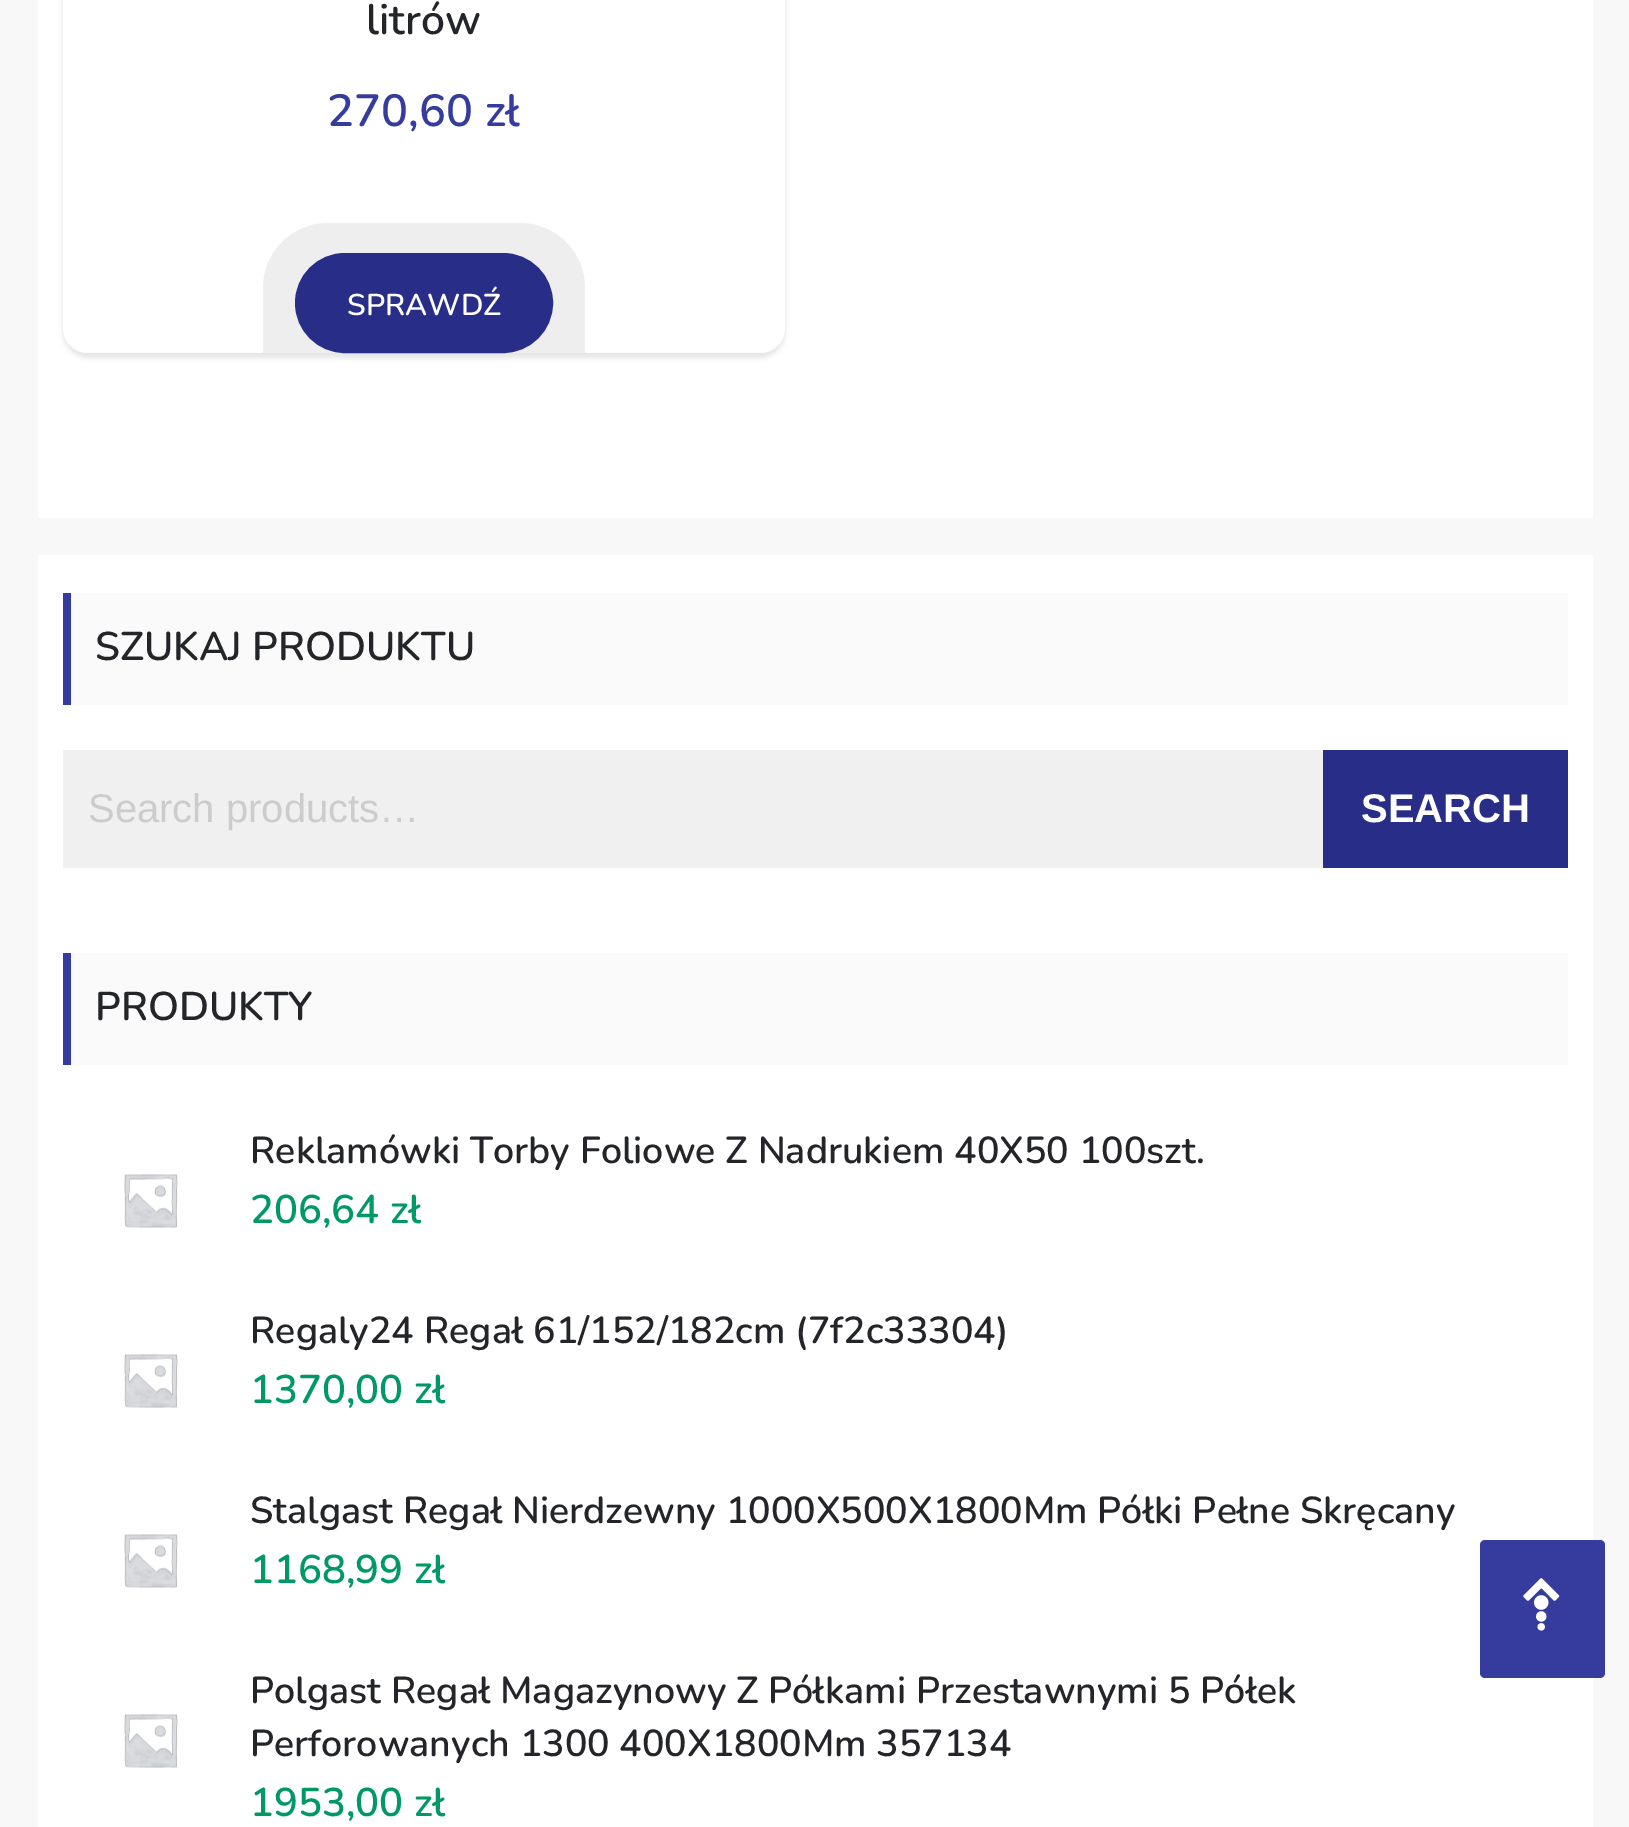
%!PS-Adobe-3.0
%%BoundingBox: 0 0 1629 1827
%%LanguageLevel: 3
%%Pages: 1
%%EndComments
%%BeginProlog
/setink { dup -16 bitshift 255 div exch dup -8 bitshift 255 and 255 div exch 255 and 255 div setrgbcolor } def
/usefont { [ exch dup neg 0 0 3 -1 roll 0 0 ] selectfont } def
/setalpha { dup .setfillconstantalpha .setstrokeconstantalpha } def
/rrect { 5 dict begin { /r /h /w /y /x } { exch def } forall
  x r add y moveto x w add y 2 copy h add r arct x w add y h add x 1 index r arct
  x y h add x y r arct x y 2 copy exch w add exch r arct closepath end } def
/softshadow { 12 dict begin { /a /b /q /h /w /y /x } { exch def } forall gsave /was 0 def
  9 -2 -9 { dup b mul 4 div /e exch def 1 sub .425 mul 2.718 exch exp 1 add a .99 .min exch div /now exch def
    1 1 now sub 1 was sub div sub setalpha /was now def
    w h .min e 2 mul add 0 gt { x e sub y e sub w e 2 mul add h e 2 mul add
      q e add b .6 mul add w h .min 2 div e add .min 0 .max rrect fill } if } for grestore end } def
/drawimage { 5 dict begin { /h /w /y /x /name } { exch def } forall
  gsave x y translate w h scale
  w h 8 [w 0 0 h 0 0] name (r) file false 3 colorimage grestore end } def
%%EndProlog
%%BeginSetup
<< /PageSize [1629 1827] /PageUsesTransparency true >> setpagedevice
%%EndSetup
%%Page: 1 1
0 .pushpdf14devicefilter
0 1827 translate 1 -1 scale
4 setmiterlimit
16#F8F8F8 setink
0 0 1629 1827 rectfill
16#FFFFFF setink
38 0 1555 518 rectfill
16#9B9B9B setink
63 -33 722 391 25 2.5 0.25 softshadow
16#FFFFFF setink
63 -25 722 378 25 rrect fill
/Nunito-SemiBold 42.5 usefont
16#232529 setink
366 34 moveto (litrów) show
/Nunito-SemiBold 45 usefont
16#353C9E setink
327 126 moveto (270,60 zł) show
16#EEEEEE setink
328 223 moveto 520 223 lineto 556 223 585 252 585 288 curveto 585 353 lineto 263 353 lineto 263 288 lineto 263 252 292 223 328 223 curveto closepath fill
16#282E87 setink
296.5 254.5 255 97 48.5 rrect gsave fill grestore
3 setlinewidth
stroke
/Nunito-SemiBold 30 usefont
16#FFFFFF setink
347 315 moveto (SPRAWDŹ) show
[
    [38 555 1555 1272 16#FFFFFF]
    [71 593 1497 112 16#FAFAFA]
    [63 593 8 112 16#353C9E]
] { aload pop setink rectfill } forall
/Nunito-SemiBold 40 usefont
16#232529 setink
95 660 moveto (SZUKAJ PRODUKTU) show
16#F0F0F0 setink
63 750 1260 118 rectfill
/LiberationSans-Regular 40 usefont
16#CCCCCC setink
88 822 moveto (Search products…) show
16#282E87 setink
1323 750 245 118 rectfill
/LiberationSans-Bold 40 usefont
16#FFFFFF setink
1361 822 moveto (SEARCH) show
16#FAFAFA setink
71 953 1497 112 rectfill
16#353C9E setink
63 953 8 112 rectfill
/Nunito-SemiBold 40 usefont
16#232529 setink
95 1020 moveto (PRODUKTY) show
/Nunito-SemiBold 37.5 usefont
250 1163 moveto (Reklamówki Torby Foliowe Z Nadrukiem 40X50 100szt.) show
(img1.raw) 124 1174 54 54 drawimage
/Nunito-SemiBold 40 usefont
16#009966 setink
250 1223 moveto (206,64 zł) show
/Nunito-SemiBold 37.5 usefont
16#232529 setink
250 1343 moveto (Regaly24 Regał 61/152/182cm \(7f2c33304\)) show
(img1.raw) 124 1354 54 54 drawimage
/Nunito-SemiBold 40 usefont
16#009966 setink
250 1403 moveto (1370,00 zł) show
/Nunito-SemiBold 37.5 usefont
16#232529 setink
250 1523 moveto (Stalgast Regał Nierdzewny 1000X500X1800Mm Półki Pełne Skręcany) show
(img1.raw) 124 1534 54 54 drawimage
/Nunito-SemiBold 40 usefont
16#009966 setink
250 1583 moveto (1168,99 zł) show
/Nunito-SemiBold 37.5 usefont
16#232529 setink
250 1703 moveto (Polgast Regał Magazynowy Z Półkami Przestawnymi 5 Półek) show
(img1.raw) 124 1714 54 54 drawimage
250 1756 moveto (Perforowanych 1300 400X1800Mm 357134) show
/Nunito-SemiBold 40 usefont
16#009966 setink
250 1816 moveto (1953,00 zł) show
16#353C9E setink
1480 1540 125 138 5 rrect fill
(img2.raw) 1523 1578 37 53 drawimage
.poppdf14devicefilter showpage
%%EOF
